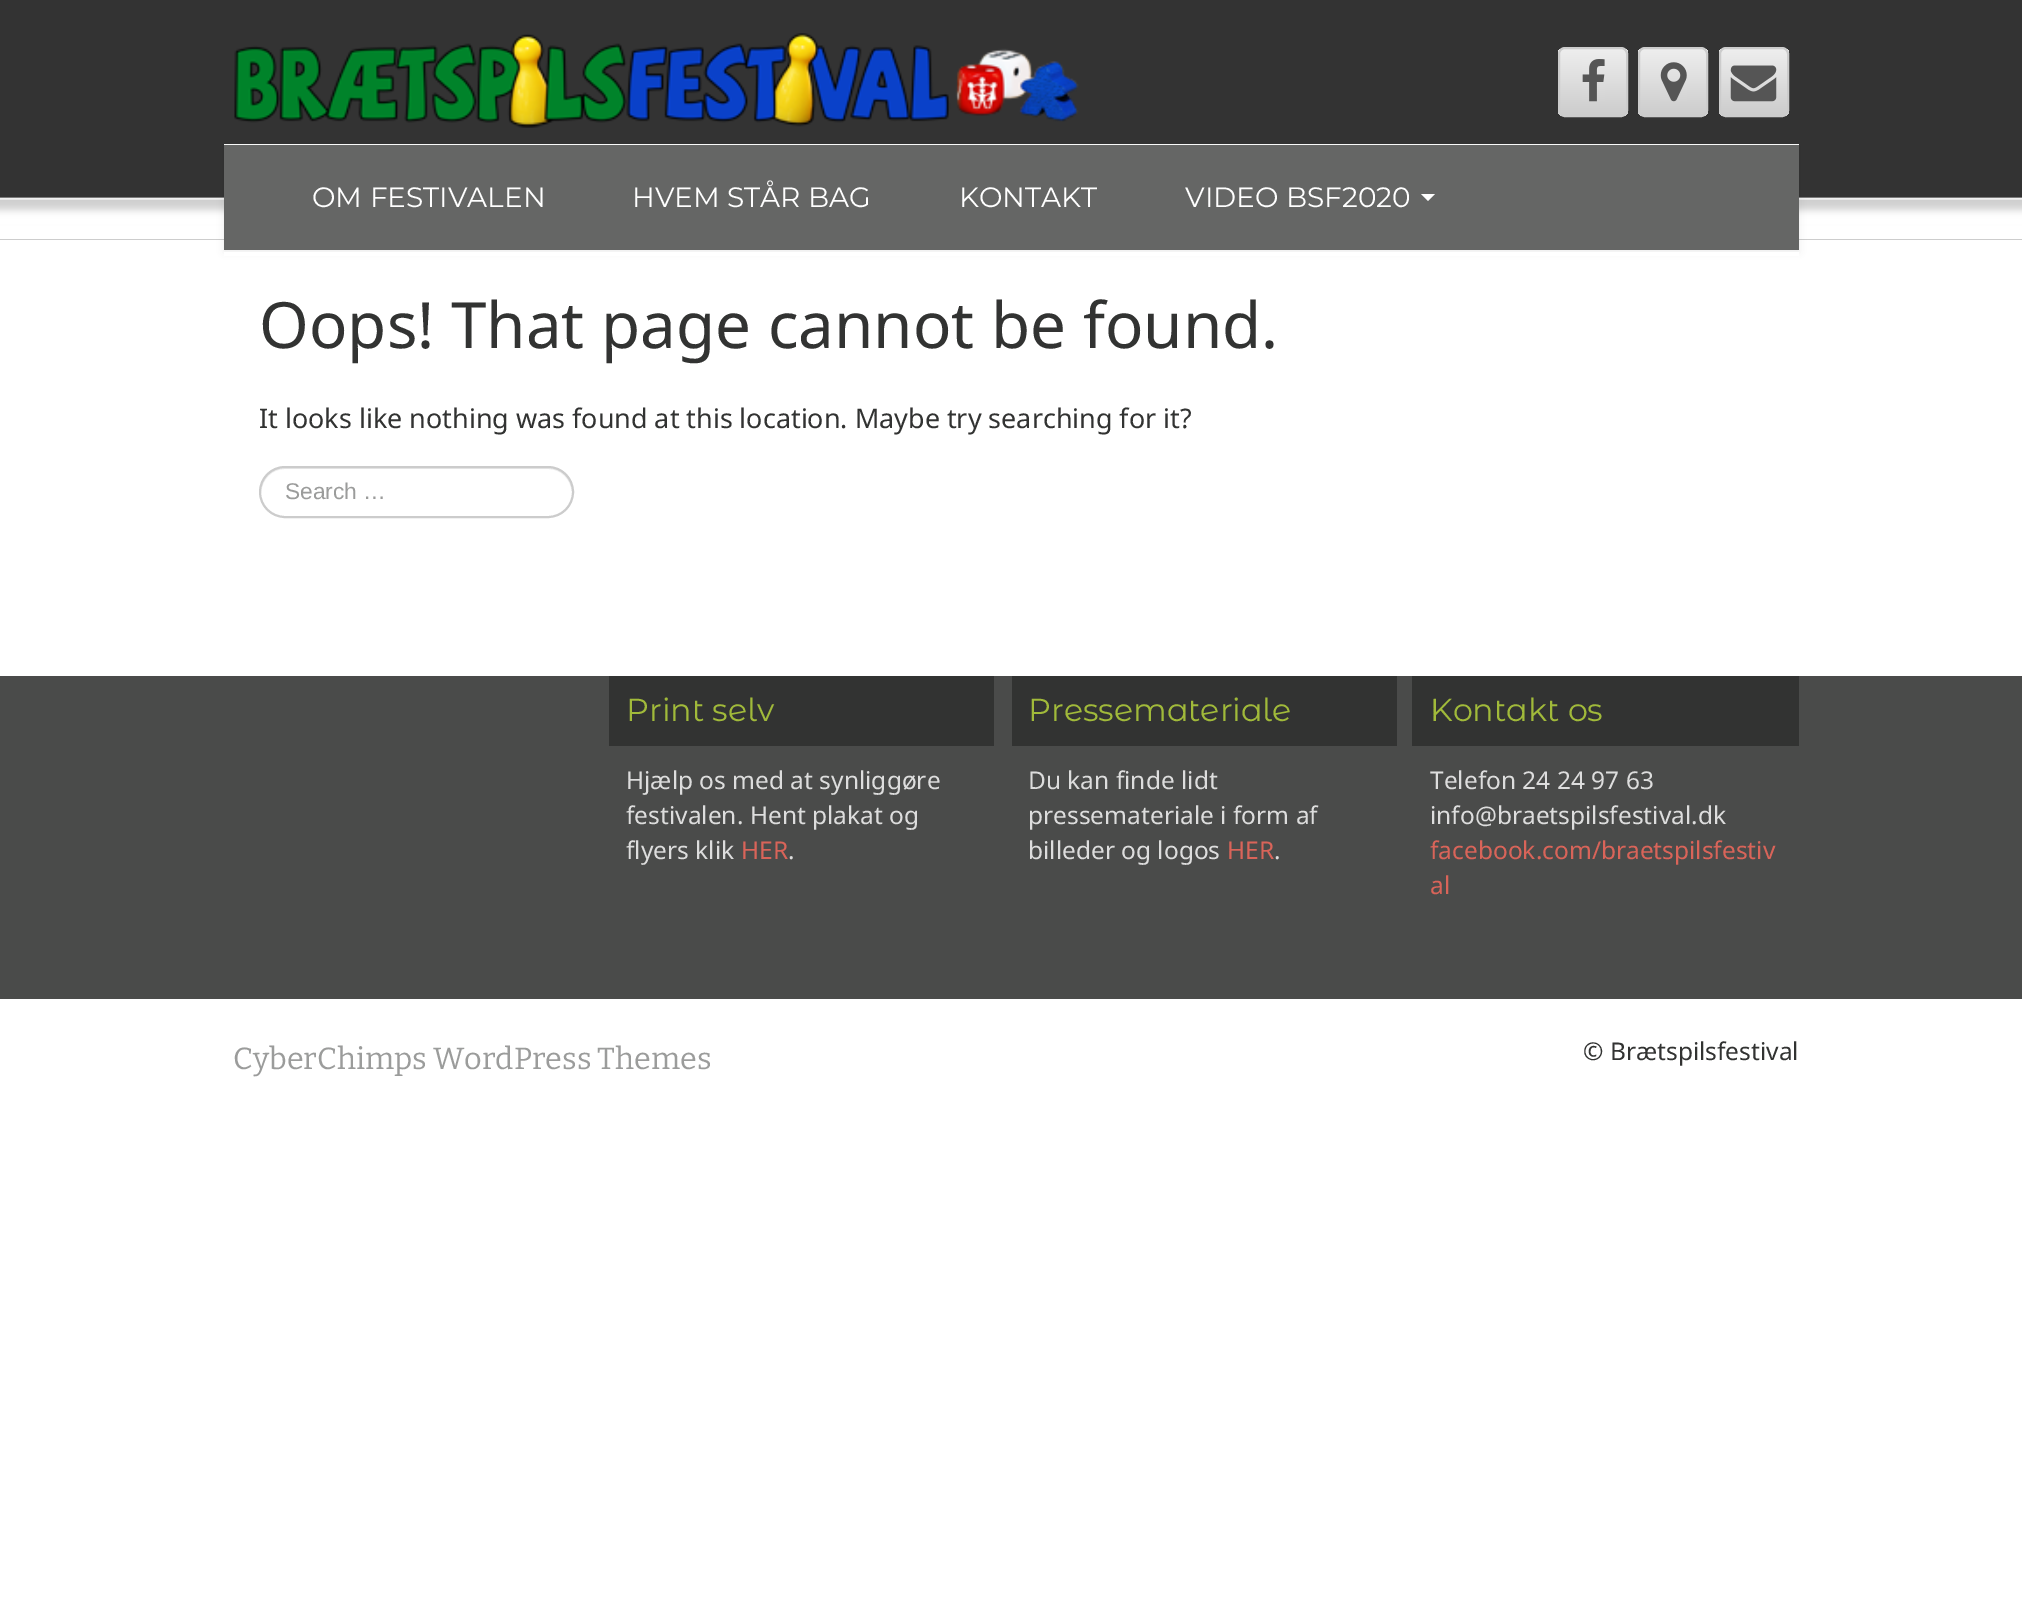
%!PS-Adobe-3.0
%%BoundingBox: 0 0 2022 1615
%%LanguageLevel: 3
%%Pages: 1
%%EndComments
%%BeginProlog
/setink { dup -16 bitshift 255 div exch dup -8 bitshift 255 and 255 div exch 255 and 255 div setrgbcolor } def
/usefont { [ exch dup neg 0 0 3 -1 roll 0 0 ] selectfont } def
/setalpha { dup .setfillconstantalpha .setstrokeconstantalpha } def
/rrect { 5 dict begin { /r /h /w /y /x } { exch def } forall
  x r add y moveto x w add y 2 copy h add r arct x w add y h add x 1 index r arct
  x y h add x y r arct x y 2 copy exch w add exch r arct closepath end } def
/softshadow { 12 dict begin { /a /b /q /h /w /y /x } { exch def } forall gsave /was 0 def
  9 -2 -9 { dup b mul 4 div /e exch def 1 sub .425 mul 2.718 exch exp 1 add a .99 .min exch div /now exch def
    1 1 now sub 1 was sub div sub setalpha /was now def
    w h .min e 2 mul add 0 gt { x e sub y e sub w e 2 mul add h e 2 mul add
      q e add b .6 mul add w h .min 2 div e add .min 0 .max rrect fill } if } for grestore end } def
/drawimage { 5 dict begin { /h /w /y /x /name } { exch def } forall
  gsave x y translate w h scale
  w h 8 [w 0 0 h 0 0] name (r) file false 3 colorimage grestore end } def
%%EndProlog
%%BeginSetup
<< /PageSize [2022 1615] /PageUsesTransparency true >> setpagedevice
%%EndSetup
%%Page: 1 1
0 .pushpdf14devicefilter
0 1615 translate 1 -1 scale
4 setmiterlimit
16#FFFFFF setink
0 0 2022 1615 rectfill
16#333333 setink
0 0 2022 240 rectfill
(img1.raw) 0 197 2022 43 drawimage
(img2.raw) 234 33 845 95 drawimage
gsave
1558 47 70 70 7 rrect clip newpath
gsave 1558 49 moveto 1628 49 lineto 1628 116 lineto 1558 116 lineto closepath clip newpath
<< /ShadingType 2 /ColorSpace /DeviceRGB /Coords [1593 49 1593 116] /Extend [true true] /Function << /FunctionType 2 /Domain [0 1] /C0 [0.933 0.933 0.933] /C1 [0.8 0.8 0.8] /N 1 >> >> shfill grestore
grestore
16#CCCCCC setink
2 setlinewidth
1559 48 68 68 6 rrect stroke
(img3.raw) 1582 59 23 43 drawimage
gsave
1638 47 70 70 7 rrect clip newpath
gsave 1638 49 moveto 1708 49 lineto 1708 116 lineto 1638 116 lineto closepath clip newpath
<< /ShadingType 2 /ColorSpace /DeviceRGB /Coords [1673 49 1673 116] /Extend [true true] /Function << /FunctionType 2 /Domain [0 1] /C0 [0.933 0.933 0.933] /C1 [0.8 0.8 0.8] /N 1 >> >> shfill grestore
grestore
1639 48 68 68 6 rrect stroke
(img4.raw) 1660 62 27 40 drawimage
gsave
1719 47 70 70 7 rrect clip newpath
gsave 1719 49 moveto 1789 49 lineto 1789 116 lineto 1719 116 lineto closepath clip newpath
<< /ShadingType 2 /ColorSpace /DeviceRGB /Coords [1754 49 1754 116] /Extend [true true] /Function << /FunctionType 2 /Domain [0 1] /C0 [0.933 0.933 0.933] /C1 [0.8 0.8 0.8] /N 1 >> >> shfill grestore
grestore
1720 48 68 68 6 rrect stroke
(img5.raw) 1730 65 47 37 drawimage
16#FEFFFE setink
224 144 1575 1 rectfill
16#000000 setink
224 147 1575 105 0 3.5 0.07 softshadow
16#656665 setink
224 145 1575 105 rectfill
/Montserrat-Regular 28 usefont
16#FFFFFF setink
[
    [(OM FESTIVALEN) 312 207]
    [(HVEM STÅR BAG) 632 207]
    [(KONTAKT) 959 207]
    [(VIDEO BSF2020) 1185 207]
] { aload pop moveto show } forall
1421 194 moveto 1435 194 lineto 1428 201 lineto closepath fill
224 252 1575 4 rectfill
/NotoSans-Regular 63.75 usefont
16#323332 setink
259 348 moveto (Oops! That page cannot be found.) show
/NotoSans-Regular 26.95 usefont
259 428 moveto (It looks like nothing was found at this location. Maybe try searching for it?) show
16#ECECEC setink
285 469 moveto 548 469 lineto 561 469 571 479 572 493 curveto 572 492 lineto 572 478 561 467 548 467 curveto 286 467 lineto 272 467 261 478 261 492 curveto 261 493 lineto 262 479 272 469 285 469 curveto closepath fill
16#CCCCCC setink
260 467 313 50 25 rrect stroke
/LiberationSans-Regular 22.75 usefont
16#9B9C9B setink
285 499 moveto (Search …) show
16#4A4B4A setink
0 676 2022 323 rectfill
16#323332 setink
609 676 385 70 rectfill
/MontserratAlternates-Regular 31.75 usefont
16#A1BA3A setink
626 721 moveto (Print selv) show
/NotoSans-Regular 24.5 usefont
16#DDDDDD setink
[
    [(Hjælp os med at synliggøre) 626 789]
    [(festivalen. Hent plakat og) 626 824]
    [(flyers klik) 626 859]
] { aload pop moveto show } forall
16#D96459 setink
741 859 moveto (HER) show
16#DDDDDD setink
788 859 moveto (.) show
16#323332 setink
1012 676 385 70 rectfill
/MontserratAlternates-Regular 31.75 usefont
16#A1BA3A setink
1028 721 moveto (Pressemateriale) show
/NotoSans-Regular 24.5 usefont
16#DDDDDD setink
[
    [(Du kan finde lidt) 1028 789]
    [(pressemateriale i form af) 1028 824]
    [(billeder og logos) 1028 859]
] { aload pop moveto show } forall
16#D96459 setink
1227 859 moveto (HER) show
16#DDDDDD setink
1274 859 moveto (.) show
16#323332 setink
1412 676 387 70 rectfill
/MontserratAlternates-Regular 31.75 usefont
16#A1BA3A setink
1430 721 moveto (Kontakt os) show
/NotoSans-Regular 24.5 usefont
16#DDDDDD setink
1430 789 moveto (Telefon 24 24 97 63) show
1430 824 moveto (info@braetspilsfestival.dk) show
16#D96459 setink
1430 859 moveto (facebook.com/braetspilsfestiv) show
1430 894 moveto (al) show
/Bitter-Thin 30.6 usefont
16#9B9C9B setink
233 1069 moveto (CyberChimps WordPress Themes) show
/NotoSans-Regular 24.5 usefont
16#323332 setink
1583 1060 moveto (© Brætspilsfestival) show
.poppdf14devicefilter showpage
%%EOF
